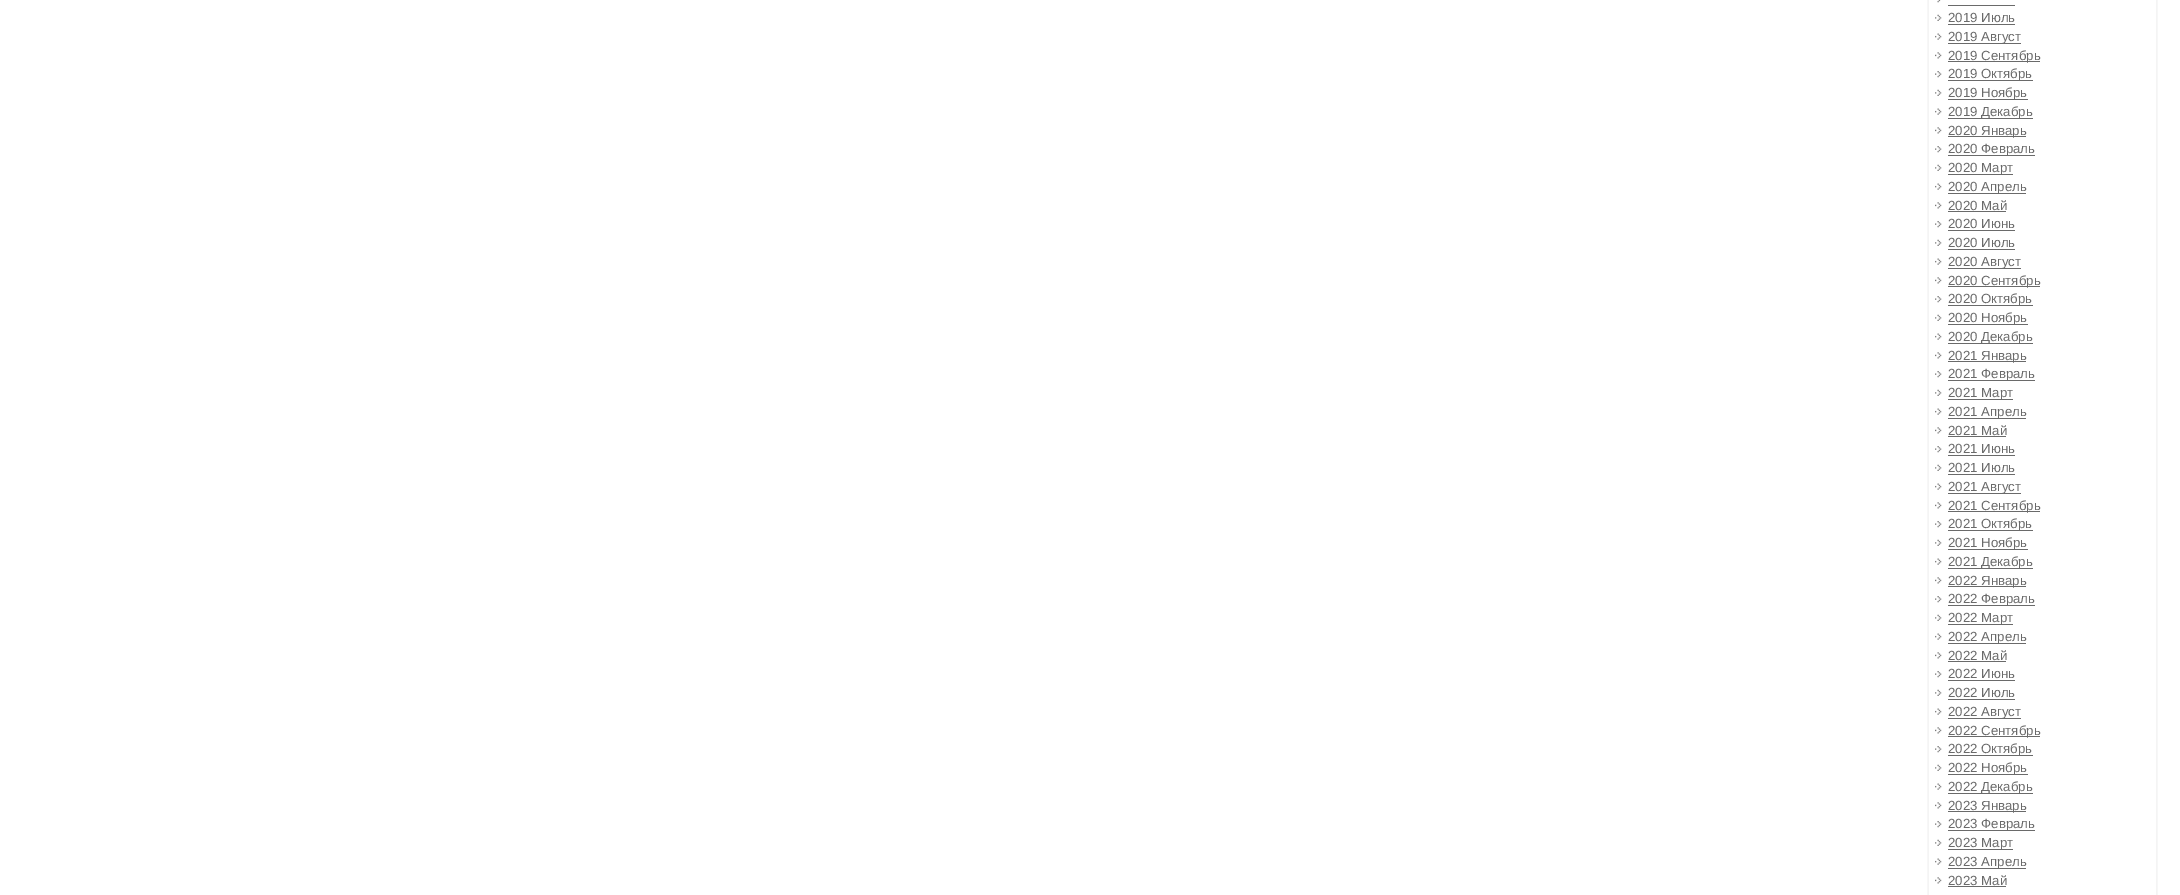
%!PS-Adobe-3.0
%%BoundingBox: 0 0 2180 895
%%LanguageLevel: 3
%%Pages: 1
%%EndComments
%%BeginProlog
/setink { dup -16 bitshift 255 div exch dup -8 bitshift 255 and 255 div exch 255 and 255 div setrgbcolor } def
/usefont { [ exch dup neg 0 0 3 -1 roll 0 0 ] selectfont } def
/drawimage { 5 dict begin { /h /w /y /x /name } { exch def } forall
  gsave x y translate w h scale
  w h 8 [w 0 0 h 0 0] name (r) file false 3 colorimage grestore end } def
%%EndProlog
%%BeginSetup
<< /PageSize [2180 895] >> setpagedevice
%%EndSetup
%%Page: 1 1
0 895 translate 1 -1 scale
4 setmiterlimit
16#FFFFFF setink
0 0 2180 895 rectfill
(img1.raw) 1927 0 231 895 drawimage
(img2.raw) 1937 0 4 3 drawimage
16#6A6A6A setink
1948 5 67 1 rectfill
(img3.raw) 1935 14 7 7 drawimage
/LiberationSans-Regular 13.25 usefont
1948 22 moveto (2019 Июль) show
1948 24 67 1 rectfill
(img4.raw) 1935 33 7 7 drawimage
1948 43 73 1 rectfill
1948 41 moveto (2019 Август) show
(img5.raw) 1935 52 7 7 drawimage
1948 61 92 1 rectfill
1948 60 moveto (2019 Сентябрь) show
(img6.raw) 1935 71 7 7 drawimage
1948 80 85 1 rectfill
1948 78 moveto (2019 Октябрь) show
(img3.raw) 1935 89 7 7 drawimage
1948 99 80 1 rectfill
1948 97 moveto (2019 Ноябрь) show
(img4.raw) 1935 108 7 7 drawimage
1948 118 85 1 rectfill
1948 116 moveto (2019 Декабрь) show
(img5.raw) 1935 127 7 7 drawimage
1948 136 78 1 rectfill
1948 135 moveto (2020 Январь) show
(img6.raw) 1935 146 7 7 drawimage
1948 155 87 1 rectfill
1948 153 moveto (2020 Февраль) show
(img3.raw) 1935 164 7 7 drawimage
1948 174 65 1 rectfill
1948 172 moveto (2020 Март) show
(img4.raw) 1935 183 7 7 drawimage
1948 193 78 1 rectfill
1948 191 moveto (2020 Апрель) show
(img5.raw) 1935 202 7 7 drawimage
1948 210 moveto (2020 Май) show
1948 211 58 1 rectfill
(img6.raw) 1935 221 7 7 drawimage
1948 228 moveto (2020 Июнь) show
1948 230 67 1 rectfill
(img3.raw) 1935 239 7 7 drawimage
1948 247 moveto (2020 Июль) show
1948 249 67 1 rectfill
(img4.raw) 1935 258 7 7 drawimage
1948 268 73 1 rectfill
1948 266 moveto (2020 Август) show
(img5.raw) 1935 277 7 7 drawimage
1948 286 92 1 rectfill
1948 285 moveto (2020 Сентябрь) show
(img6.raw) 1935 296 7 7 drawimage
1948 305 85 1 rectfill
1948 303 moveto (2020 Октябрь) show
(img3.raw) 1935 314 7 7 drawimage
1948 324 80 1 rectfill
1948 322 moveto (2020 Ноябрь) show
(img4.raw) 1935 333 7 7 drawimage
1948 343 85 1 rectfill
1948 341 moveto (2020 Декабрь) show
(img5.raw) 1935 352 7 7 drawimage
1948 361 78 1 rectfill
1948 360 moveto (2021 Январь) show
(img6.raw) 1935 371 7 7 drawimage
1948 380 87 1 rectfill
1948 378 moveto (2021 Февраль) show
(img3.raw) 1935 389 7 7 drawimage
1948 399 65 1 rectfill
1948 397 moveto (2021 Март) show
(img4.raw) 1935 408 7 7 drawimage
1948 418 78 1 rectfill
1948 416 moveto (2021 Апрель) show
(img5.raw) 1935 427 7 7 drawimage
1948 435 moveto (2021 Май) show
1948 436 58 1 rectfill
(img6.raw) 1935 446 7 7 drawimage
1948 453 moveto (2021 Июнь) show
1948 455 67 1 rectfill
(img3.raw) 1935 464 7 7 drawimage
1948 472 moveto (2021 Июль) show
1948 474 67 1 rectfill
(img4.raw) 1935 483 7 7 drawimage
1948 493 73 1 rectfill
1948 491 moveto (2021 Август) show
(img5.raw) 1935 502 7 7 drawimage
1948 511 92 1 rectfill
1948 510 moveto (2021 Сентябрь) show
(img6.raw) 1935 521 7 7 drawimage
1948 530 85 1 rectfill
1948 528 moveto (2021 Октябрь) show
(img3.raw) 1935 539 7 7 drawimage
1948 549 80 1 rectfill
1948 547 moveto (2021 Ноябрь) show
(img4.raw) 1935 558 7 7 drawimage
1948 568 85 1 rectfill
1948 566 moveto (2021 Декабрь) show
(img5.raw) 1935 577 7 7 drawimage
1948 586 78 1 rectfill
1948 585 moveto (2022 Январь) show
(img6.raw) 1935 596 7 7 drawimage
1948 605 87 1 rectfill
1948 603 moveto (2022 Февраль) show
(img3.raw) 1935 614 7 7 drawimage
1948 624 65 1 rectfill
1948 622 moveto (2022 Март) show
(img4.raw) 1935 633 7 7 drawimage
1948 643 78 1 rectfill
1948 641 moveto (2022 Апрель) show
(img5.raw) 1935 652 7 7 drawimage
1948 660 moveto (2022 Май) show
1948 661 58 1 rectfill
(img6.raw) 1935 671 7 7 drawimage
1948 678 moveto (2022 Июнь) show
1948 680 67 1 rectfill
(img3.raw) 1935 689 7 7 drawimage
1948 697 moveto (2022 Июль) show
1948 699 67 1 rectfill
(img4.raw) 1935 708 7 7 drawimage
1948 718 73 1 rectfill
1948 716 moveto (2022 Август) show
(img5.raw) 1935 727 7 7 drawimage
1948 736 92 1 rectfill
1948 735 moveto (2022 Сентябрь) show
(img6.raw) 1935 746 7 7 drawimage
1948 755 85 1 rectfill
1948 753 moveto (2022 Октябрь) show
(img3.raw) 1935 764 7 7 drawimage
1948 774 80 1 rectfill
1948 772 moveto (2022 Ноябрь) show
(img4.raw) 1935 783 7 7 drawimage
1948 793 85 1 rectfill
1948 791 moveto (2022 Декабрь) show
(img5.raw) 1935 802 7 7 drawimage
1948 811 78 1 rectfill
1948 810 moveto (2023 Январь) show
(img6.raw) 1935 821 7 7 drawimage
1948 830 87 1 rectfill
1948 828 moveto (2023 Февраль) show
(img3.raw) 1935 839 7 7 drawimage
1948 849 65 1 rectfill
1948 847 moveto (2023 Март) show
(img4.raw) 1935 858 7 7 drawimage
1948 868 78 1 rectfill
1948 866 moveto (2023 Апрель) show
(img5.raw) 1935 877 7 7 drawimage
1948 885 moveto (2023 Май) show
1948 886 58 1 rectfill
showpage
%%EOF
